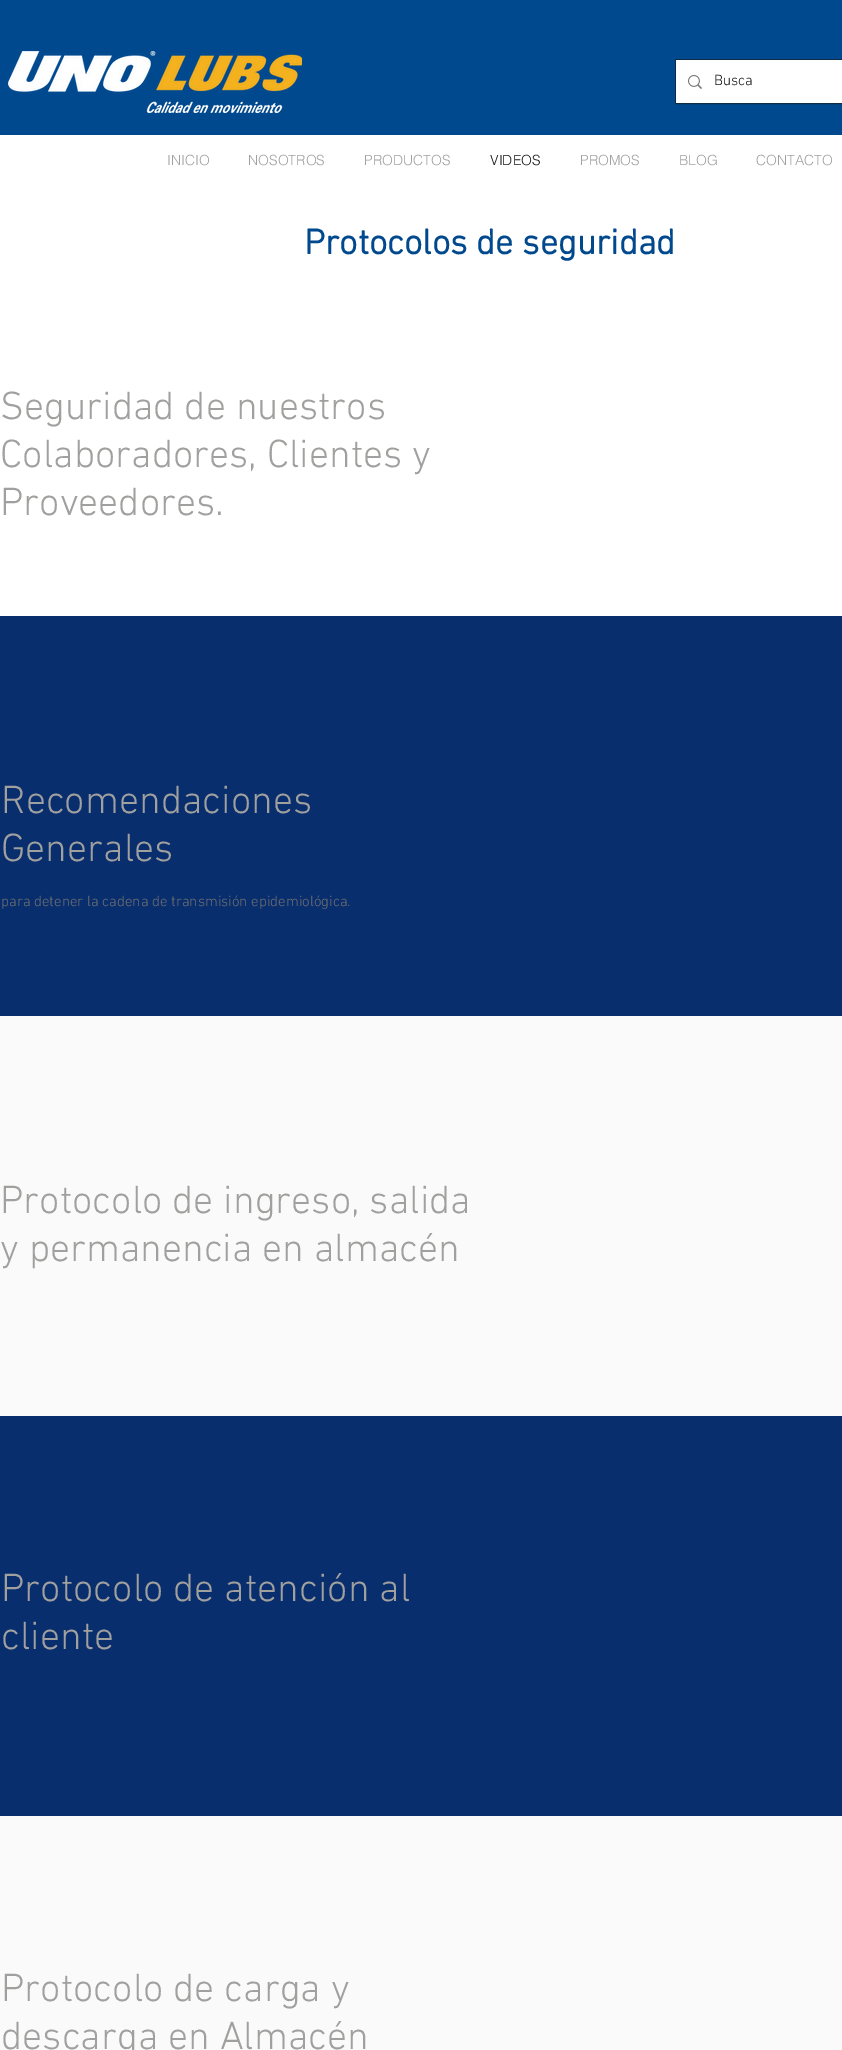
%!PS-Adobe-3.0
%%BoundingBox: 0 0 842 2050
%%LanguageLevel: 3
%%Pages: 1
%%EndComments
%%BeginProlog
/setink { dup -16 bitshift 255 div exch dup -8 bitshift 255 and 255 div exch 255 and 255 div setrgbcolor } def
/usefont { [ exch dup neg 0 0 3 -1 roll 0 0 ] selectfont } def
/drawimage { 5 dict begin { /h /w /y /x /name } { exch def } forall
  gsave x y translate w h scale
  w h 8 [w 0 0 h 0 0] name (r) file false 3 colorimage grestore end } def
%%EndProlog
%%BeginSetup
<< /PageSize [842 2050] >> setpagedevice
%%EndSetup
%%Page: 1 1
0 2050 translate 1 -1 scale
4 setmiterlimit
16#FFFFFF setink
0 0 842 2050 rectfill
16#01498E setink
0 0 842 135 rectfill
(img1.raw) 8 51 294 62 drawimage
16#0E2B47 setink
675.5 59.5 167 44 rectstroke
16#FFFFFF setink
676 60 166 43 rectfill
(img2.raw) 688 75 14 14 drawimage
/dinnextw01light-Light 15 usefont
16#171717 setink
714 85 moveto (Busca) show
/helvetica-Light 14 usefont
16#A0A09F setink
[
    [(INICIO) 167 165]
    [(NOSOTROS) 248 165]
    [(PRODUCTOS) 364 165]
] { aload pop moveto show } forall
16#171717 setink
490 165 moveto (VIDEOS) show
16#A0A09F setink
[
    [(PROMOS) 580 165]
    [(BLOG) 679 165]
    [(CONTACTO) 756 165]
] { aload pop moveto show } forall
/dinnextw01light-Bold 36 usefont
16#01498E setink
304 254 moveto (Protocolos de seguridad) show
/dinnextw01light-Light 40 usefont
16#A0A09F setink
[
    [(Seguridad de nuestros) 0 419]
    [(Colaboradores, Clientes y) 0 467]
    [(Proveedores.) 0 515]
] { aload pop moveto show } forall
16#092E6E setink
0 616 842 400 rectfill
16#A0A09F setink
1 813 moveto (Recomendaciones) show
1 861 moveto (Generales) show
/dinnextw01light-Light 15 usefont
16#707070 setink
1 906 moveto (para detener la cadena de transmisión epidemiológica.) show
16#FAFAFA setink
0 1016 842 400 rectfill
/dinnextw01light-Light 40 usefont
16#A0A09F setink
0 1213 moveto (Protocolo de ingreso, salida) show
0 1261 moveto (y permanencia en almacén) show
16#092E6E setink
0 1416 842 400 rectfill
16#A0A09F setink
1 1601 moveto (Protocolo de atención al) show
1 1649 moveto (cliente) show
16#FAFAFA setink
0 1816 842 234 rectfill
16#A0A09F setink
1 2001 moveto (Protocolo de carga y) show
1 2049 moveto (descarga en Almacén) show
showpage
%%EOF
